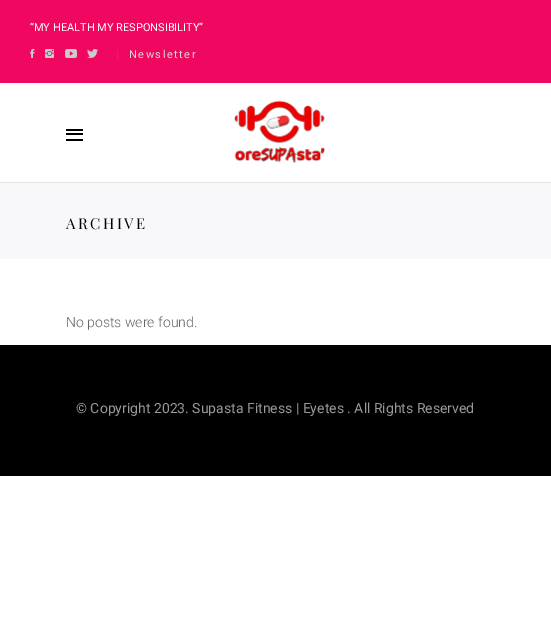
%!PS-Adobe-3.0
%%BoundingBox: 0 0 551 634
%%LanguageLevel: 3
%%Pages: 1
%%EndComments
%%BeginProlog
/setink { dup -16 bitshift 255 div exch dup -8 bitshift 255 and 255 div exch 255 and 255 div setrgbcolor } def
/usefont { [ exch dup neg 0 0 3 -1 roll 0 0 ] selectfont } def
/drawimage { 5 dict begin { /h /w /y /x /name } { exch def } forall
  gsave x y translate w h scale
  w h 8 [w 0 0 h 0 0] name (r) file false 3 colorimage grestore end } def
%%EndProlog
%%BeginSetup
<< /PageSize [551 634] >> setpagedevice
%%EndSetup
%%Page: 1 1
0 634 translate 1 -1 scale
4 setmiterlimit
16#FFFFFF setink
0 0 551 634 rectfill
16#F00860 setink
0 0 551 83 rectfill
/Roboto-Regular 11 usefont
16#FFFFFF setink
30 31 moveto (“MY HEALTH MY RESPONSIBILITY”) show
(img1.raw) 30 49 5 9 drawimage
(img2.raw) 45 49 9 9 drawimage
(img3.raw) 65 49 12 9 drawimage
(img4.raw) 87 49 11 9 drawimage
16#666666 setink
116 58 moveto (|) show
16#D9D9D9 setink
129 58 moveto 1.5 0 (Newsletter) ashow
[
    [0 182 551 1 16#E5E5E5]
    [66 129 17 2 16#000000]
    [66 133 17 2 16#000000]
    [66 139 17 2 16#000000]
] { aload pop setink rectfill } forall
(img5.raw) 234 100 91 64 drawimage
16#F8F8FA setink
0 183 551 76 rectfill
/PlayfairDisplay-Regular 15 usefont
16#000000 setink
66 229 moveto 2.5 0 (ARCHIVE) ashow
/Roboto-Light 14 usefont
16#666666 setink
66 327 moveto (No posts were found.) show
16#000000 setink
0 345 551 131 rectfill
/Roboto-Regular 14 usefont
16#999999 setink
76 413 moveto (© Copyright 2023. Supasta Fitness | Eyetes . All Rights Reserved) show
showpage
%%EOF
